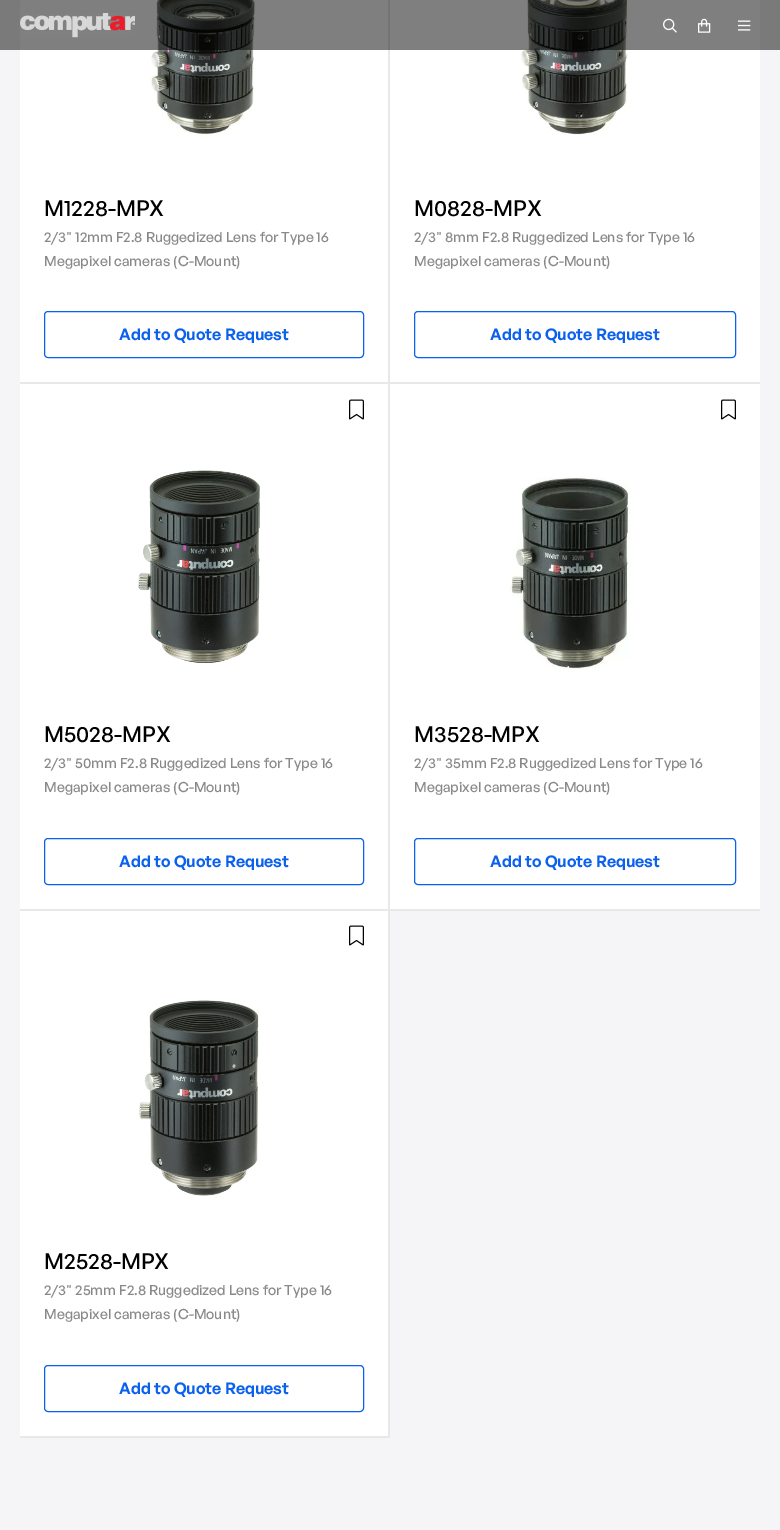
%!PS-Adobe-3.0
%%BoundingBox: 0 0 780 1530
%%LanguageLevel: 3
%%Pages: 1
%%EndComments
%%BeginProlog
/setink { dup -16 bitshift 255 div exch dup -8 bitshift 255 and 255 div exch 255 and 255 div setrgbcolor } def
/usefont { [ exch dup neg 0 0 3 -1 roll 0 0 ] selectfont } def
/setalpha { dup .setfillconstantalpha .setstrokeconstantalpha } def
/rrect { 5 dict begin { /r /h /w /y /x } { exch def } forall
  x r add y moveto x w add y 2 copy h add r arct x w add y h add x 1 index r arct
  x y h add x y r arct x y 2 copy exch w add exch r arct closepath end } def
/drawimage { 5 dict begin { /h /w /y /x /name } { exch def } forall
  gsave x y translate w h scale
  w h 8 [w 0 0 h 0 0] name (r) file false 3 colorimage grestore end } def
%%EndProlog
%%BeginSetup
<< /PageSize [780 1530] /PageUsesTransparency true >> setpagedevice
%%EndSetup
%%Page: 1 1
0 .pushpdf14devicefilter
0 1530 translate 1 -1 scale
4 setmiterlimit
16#F5F5F7 setink
0 0 780 1530 rectfill
16#FFFFFF setink
20 0 368 382 rectfill
16#E8E8E8 setink
388 0 2 1438 rectfill
(img5.raw) 151 0 106 139 drawimage
16#FFFFFF setink
390 0 370 382 rectfill
(img6.raw) 521 0 109 135 drawimage
0.5 setalpha
16#000000 setink
0 0 780 50 rectfill
1 setalpha
(img1.raw) 20 13 115 25 drawimage
(img2.raw) 663 18 14 15 drawimage
(img3.raw) 698 18 13 15 drawimage
(img4.raw) 738 20 13 11 drawimage
16#E8E8E8 setink
20 382 740 2 rectfill
/GeneralSans-Medium 22 usefont
16#000000 setink
44 216 moveto (M1228-MPX) show
/GeneralSans-Medium 14 usefont
16#898989 setink
44 242 moveto (2/3" 12mm F2.8 Ruggedized Lens for Type 16) show
44 266 moveto (Megapixel cameras \(C-Mount\)) show
16#0B61ED setink
44.5 311.5 319 46 3.5 rrect stroke
/GeneralSans-SemiBold 16 usefont
119 340 moveto (Add to Quote Request) show
/GeneralSans-Medium 22 usefont
16#000000 setink
414 216 moveto (M0828-MPX) show
/GeneralSans-Medium 14 usefont
16#898989 setink
414 242 moveto (2/3" 8mm F2.8 Ruggedized Lens for Type 16) show
414 266 moveto (Megapixel cameras \(C-Mount\)) show
16#0B61ED setink
414.5 311.5 321 46 3.5 rrect stroke
/GeneralSans-SemiBold 16 usefont
490 340 moveto (Add to Quote Request) show
16#FFFFFF setink
20 384 368 525 rectfill
16#E8E8E8 setink
20 909 740 2 rectfill
(img7.raw) 349 399 15 21 drawimage
(img8.raw) 138 470 122 193 drawimage
/GeneralSans-Medium 22 usefont
16#000000 setink
44 742 moveto (M5028-MPX) show
/GeneralSans-Medium 14 usefont
16#898989 setink
44 768 moveto (2/3" 50mm F2.8 Ruggedized Lens for Type 16) show
44 792 moveto (Megapixel cameras \(C-Mount\)) show
16#0B61ED setink
44.5 838.5 319 46 3.5 rrect stroke
/GeneralSans-SemiBold 16 usefont
119 867 moveto (Add to Quote Request) show
16#FFFFFF setink
390 384 370 525 rectfill
(img7.raw) 721 399 15 21 drawimage
(img9.raw) 509 476 122 193 drawimage
/GeneralSans-Medium 22 usefont
16#000000 setink
414 742 moveto (M3528-MPX) show
/GeneralSans-Medium 14 usefont
16#898989 setink
414 768 moveto (2/3" 35mm F2.8 Ruggedized Lens for Type 16) show
414 792 moveto (Megapixel cameras \(C-Mount\)) show
16#0B61ED setink
414.5 838.5 321 46 3.5 rrect stroke
/GeneralSans-SemiBold 16 usefont
490 867 moveto (Add to Quote Request) show
16#FFFFFF setink
20 911 368 525 rectfill
16#E8E8E8 setink
20 1436 370 2 rectfill
(img7.raw) 349 925 15 21 drawimage
(img10.raw) 139 1000 120 196 drawimage
/GeneralSans-Medium 22 usefont
16#000000 setink
44 1269 moveto (M2528-MPX) show
/GeneralSans-Medium 14 usefont
16#898989 setink
44 1295 moveto (2/3" 25mm F2.8 Ruggedized Lens for Type 16) show
44 1319 moveto (Megapixel cameras \(C-Mount\)) show
16#0B61ED setink
44.5 1365.5 319 46 3.5 rrect stroke
/GeneralSans-SemiBold 16 usefont
119 1394 moveto (Add to Quote Request) show
.poppdf14devicefilter showpage
%%EOF
